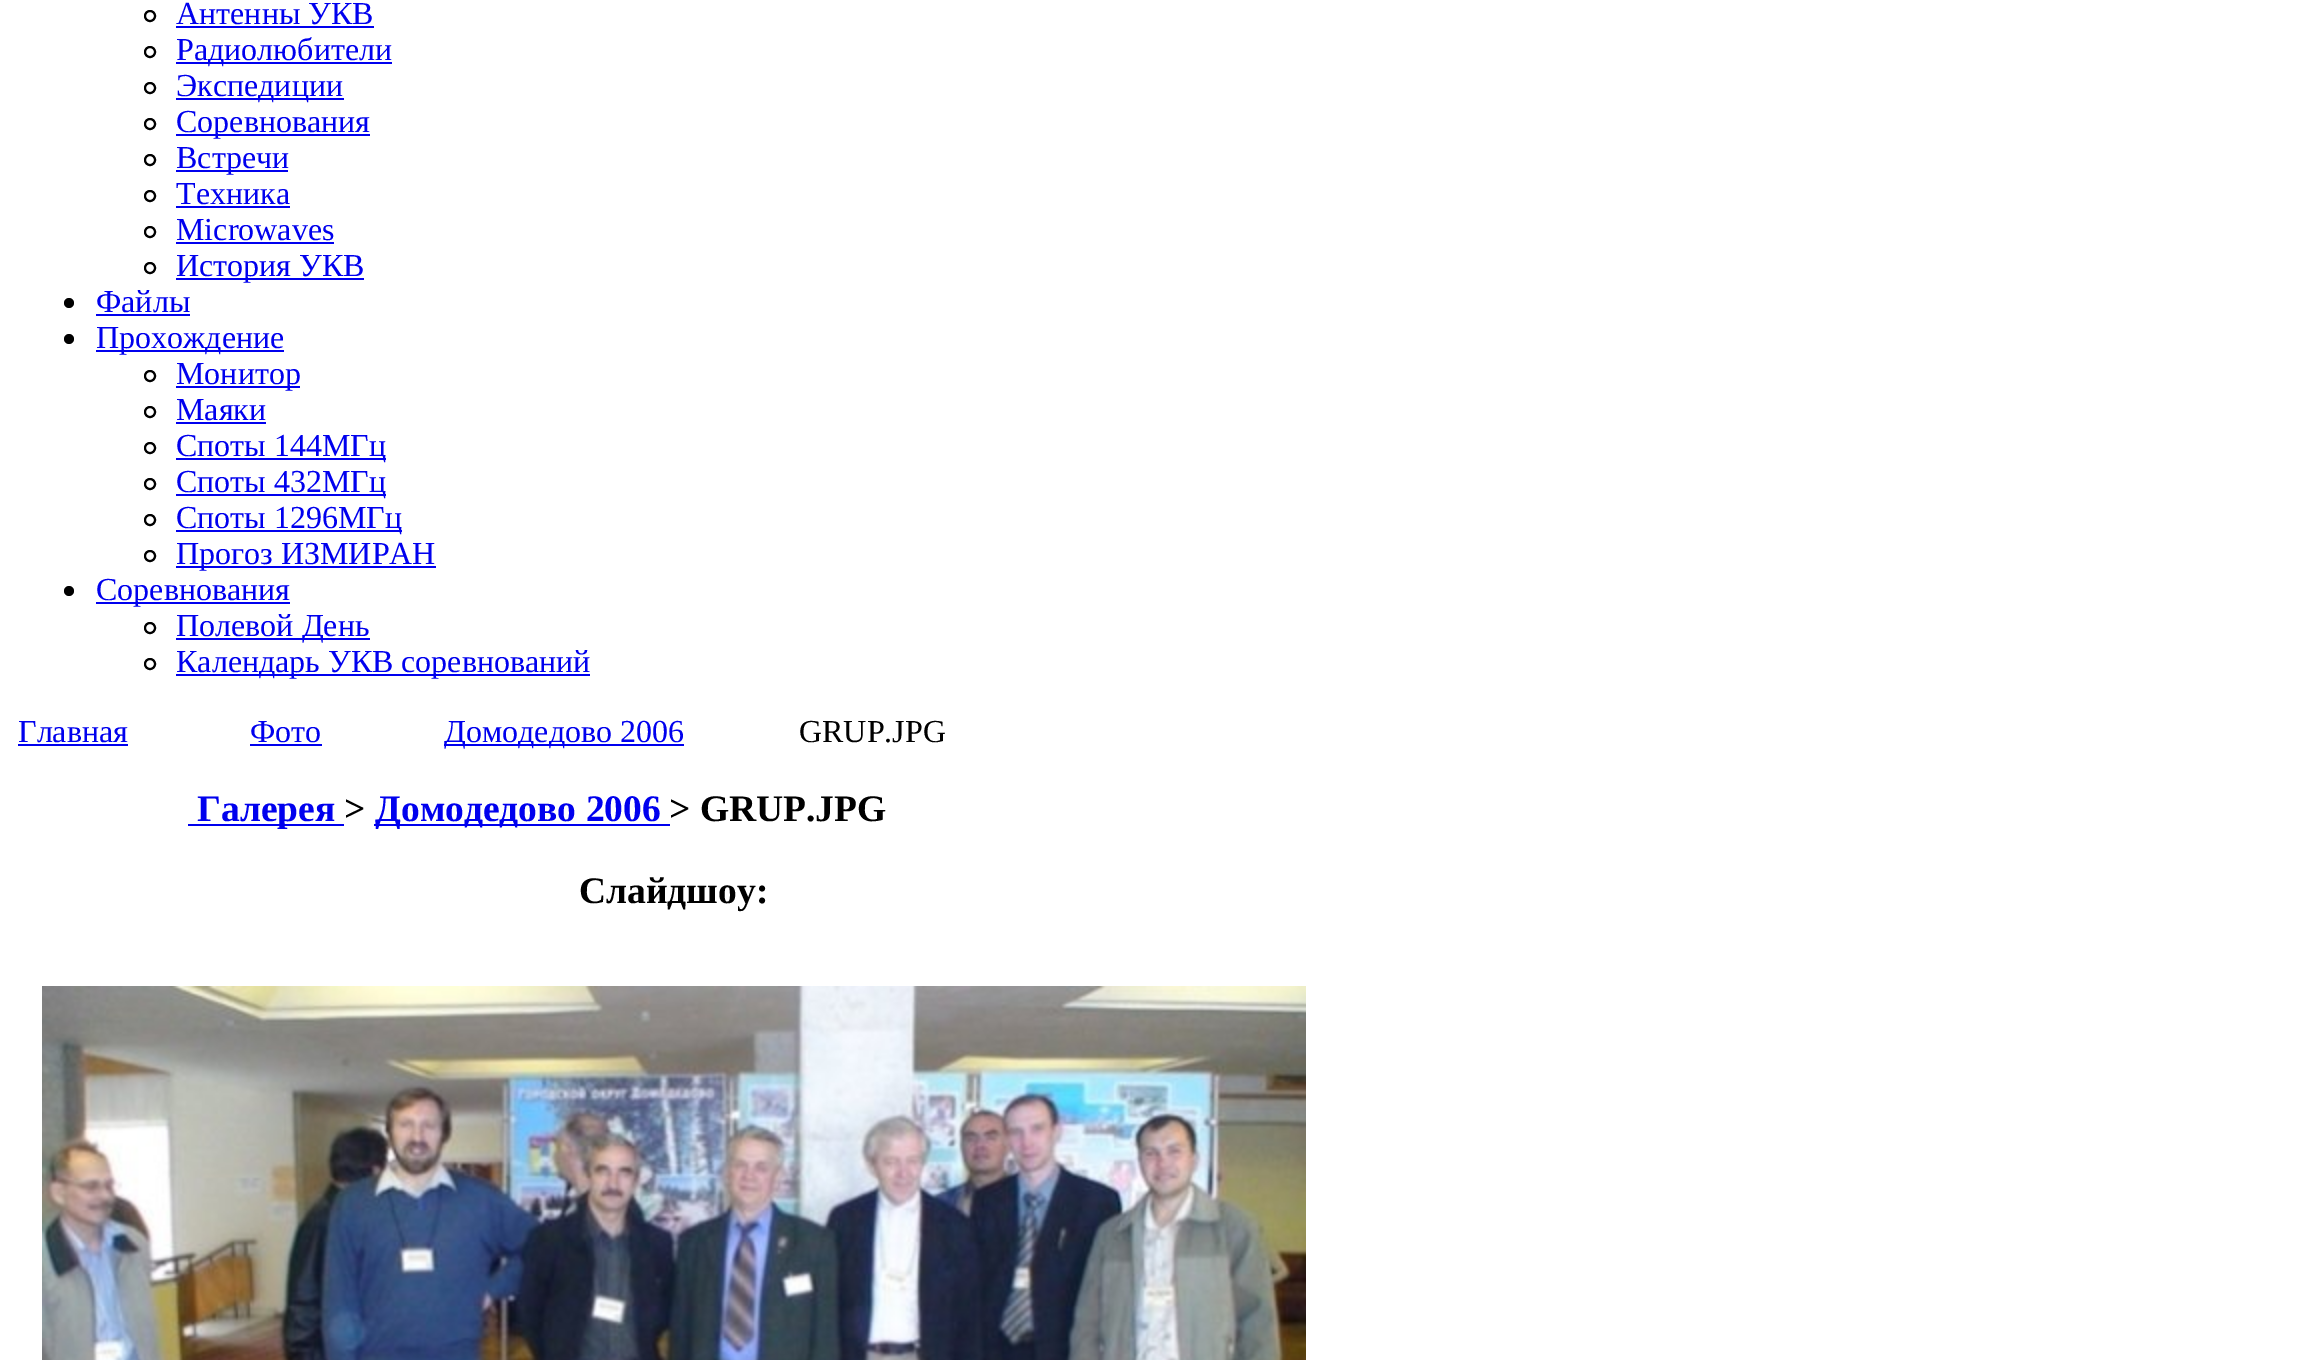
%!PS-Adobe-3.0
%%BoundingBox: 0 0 2309 1360
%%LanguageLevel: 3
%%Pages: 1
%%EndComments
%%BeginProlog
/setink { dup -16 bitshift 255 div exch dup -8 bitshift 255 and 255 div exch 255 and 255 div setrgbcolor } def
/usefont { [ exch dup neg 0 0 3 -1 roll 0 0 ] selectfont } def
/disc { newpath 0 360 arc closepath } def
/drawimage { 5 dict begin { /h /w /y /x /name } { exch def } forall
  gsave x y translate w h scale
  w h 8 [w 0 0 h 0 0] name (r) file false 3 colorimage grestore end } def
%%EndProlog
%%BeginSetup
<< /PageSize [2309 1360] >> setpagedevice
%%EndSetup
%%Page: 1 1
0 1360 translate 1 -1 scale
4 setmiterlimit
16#FFFFFF setink
0 0 2309 1360 rectfill
16#000000 setink
2 setlinewidth
150 16 5 disc stroke
/LiberationSerif-Regular 32 usefont
16#0000EE setink
176 24 moveto (Антенны УКВ) show
176 26 198 2 rectfill
16#000000 setink
150 52 5 disc stroke
16#0000EE setink
176 62 216 2 rectfill
176 60 moveto (Радиолюбители) show
16#000000 setink
150 88 5 disc stroke
16#0000EE setink
176 98 168 2 rectfill
176 96 moveto (Экспедиции) show
16#000000 setink
150 124 5 disc stroke
16#0000EE setink
176 134 194 2 rectfill
176 132 moveto (Соревнования) show
16#000000 setink
150 160 5 disc stroke
16#0000EE setink
176 170 112 2 rectfill
176 168 moveto (Встречи) show
16#000000 setink
150 196 5 disc stroke
16#0000EE setink
176 204 moveto (Техника) show
176 206 114 2 rectfill
16#000000 setink
150 232 5 disc stroke
16#0000EE setink
176 240 moveto (Microwaves) show
176 242 158 2 rectfill
16#000000 setink
150 268 5 disc stroke
16#0000EE setink
176 278 188 2 rectfill
176 276 moveto (История УКВ) show
16#000000 setink
69 303 5 disc fill
16#0000EE setink
96 312 moveto (Файлы) show
96 314 94 2 rectfill
16#000000 setink
69 339 5 disc fill
16#0000EE setink
96 350 188 2 rectfill
96 348 moveto (Прохождение) show
16#000000 setink
150 376 5 disc stroke
16#0000EE setink
176 386 124 2 rectfill
176 384 moveto (Монитор) show
16#000000 setink
150 412 5 disc stroke
16#0000EE setink
176 420 moveto (Маяки) show
176 422 90 2 rectfill
16#000000 setink
150 448 5 disc stroke
16#0000EE setink
176 458 210 2 rectfill
176 456 moveto (Споты 144МГц) show
16#000000 setink
150 484 5 disc stroke
16#0000EE setink
176 494 210 2 rectfill
176 492 moveto (Споты 432МГц) show
16#000000 setink
150 520 5 disc stroke
16#0000EE setink
176 530 226 2 rectfill
176 528 moveto (Споты 1296МГц) show
16#000000 setink
150 556 5 disc stroke
16#0000EE setink
176 566 260 2 rectfill
176 564 moveto (Прогоз ИЗМИРАН) show
16#000000 setink
69 591 5 disc fill
16#0000EE setink
96 602 194 2 rectfill
96 600 moveto (Соревнования) show
16#000000 setink
150 628 5 disc stroke
16#0000EE setink
176 638 194 2 rectfill
176 636 moveto (Полевой День) show
16#000000 setink
150 664 5 disc stroke
16#0000EE setink
176 674 414 2 rectfill
176 672 moveto (Календарь УКВ соревнований) show
18 742 moveto (Главная) show
18 744 110 2 rectfill
250 742 moveto (Фото) show
250 744 72 2 rectfill
444 744 240 2 rectfill
444 742 moveto (Домодедово 2006) show
16#000000 setink
799 742 moveto (GRUP.JPG) show
16#0000EE setink
188 824 156 2 rectfill
/LiberationSerif-Bold 37.5 usefont
197 821 moveto (Галерея) show
16#000000 setink
344 821 moveto (>) show
16#0000EE setink
374 824 296 2 rectfill
375 821 moveto (Домодедово 2006) show
16#000000 setink
669 821 moveto (> GRUP.JPG) show
579 903 moveto (Слайдшоу:) show
(img1.raw) 42 986 1264 374 drawimage
showpage
%%EOF
